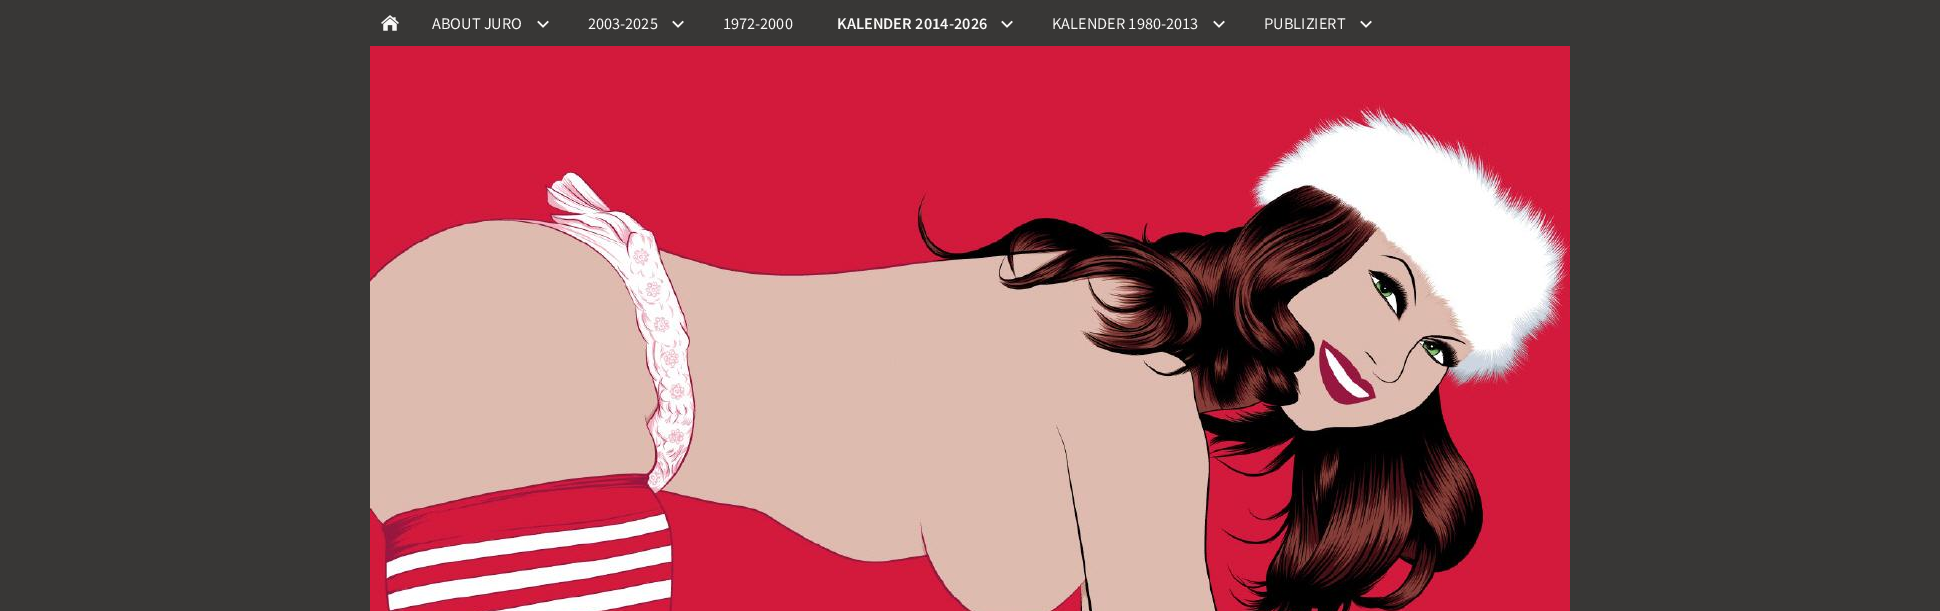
%!PS-Adobe-3.0
%%BoundingBox: 0 0 1940 611
%%LanguageLevel: 3
%%Pages: 1
%%EndComments
%%BeginProlog
/setink { dup -16 bitshift 255 div exch dup -8 bitshift 255 and 255 div exch 255 and 255 div setrgbcolor } def
/usefont { [ exch dup neg 0 0 3 -1 roll 0 0 ] selectfont } def
/drawimage { 5 dict begin { /h /w /y /x /name } { exch def } forall
  gsave x y translate w h scale
  w h 8 [w 0 0 h 0 0] name (r) file false 3 colorimage grestore end } def
%%EndProlog
%%BeginSetup
<< /PageSize [1940 611] >> setpagedevice
%%EndSetup
%%Page: 1 1
0 611 translate 1 -1 scale
4 setmiterlimit
16#383736 setink
0 0 1940 611 rectfill
(img1.raw) 381 15 18 16 drawimage
(img2.raw) 537 20 12 8 drawimage
/SourceSansPro-Regular 16.25 usefont
16#F9F8F7 setink
432 29 moveto (ABOUT JURO) show
(img2.raw) 672 20 12 8 drawimage
588 29 moveto (2003-2025) show
723 29 moveto (1972-2000) show
(img2.raw) 1001 20 12 8 drawimage
/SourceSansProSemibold-SemiBold 16.25 usefont
837 29 moveto (KALENDER 2014-2026) show
(img2.raw) 1213 20 12 8 drawimage
/SourceSansPro-Regular 16.25 usefont
1052 29 moveto (KALENDER 1980-2013) show
(img2.raw) 1360 20 12 8 drawimage
1264 29 moveto (PUBLIZIERT) show
(img3.raw) 370 46 1200 565 drawimage
showpage
%%EOF
